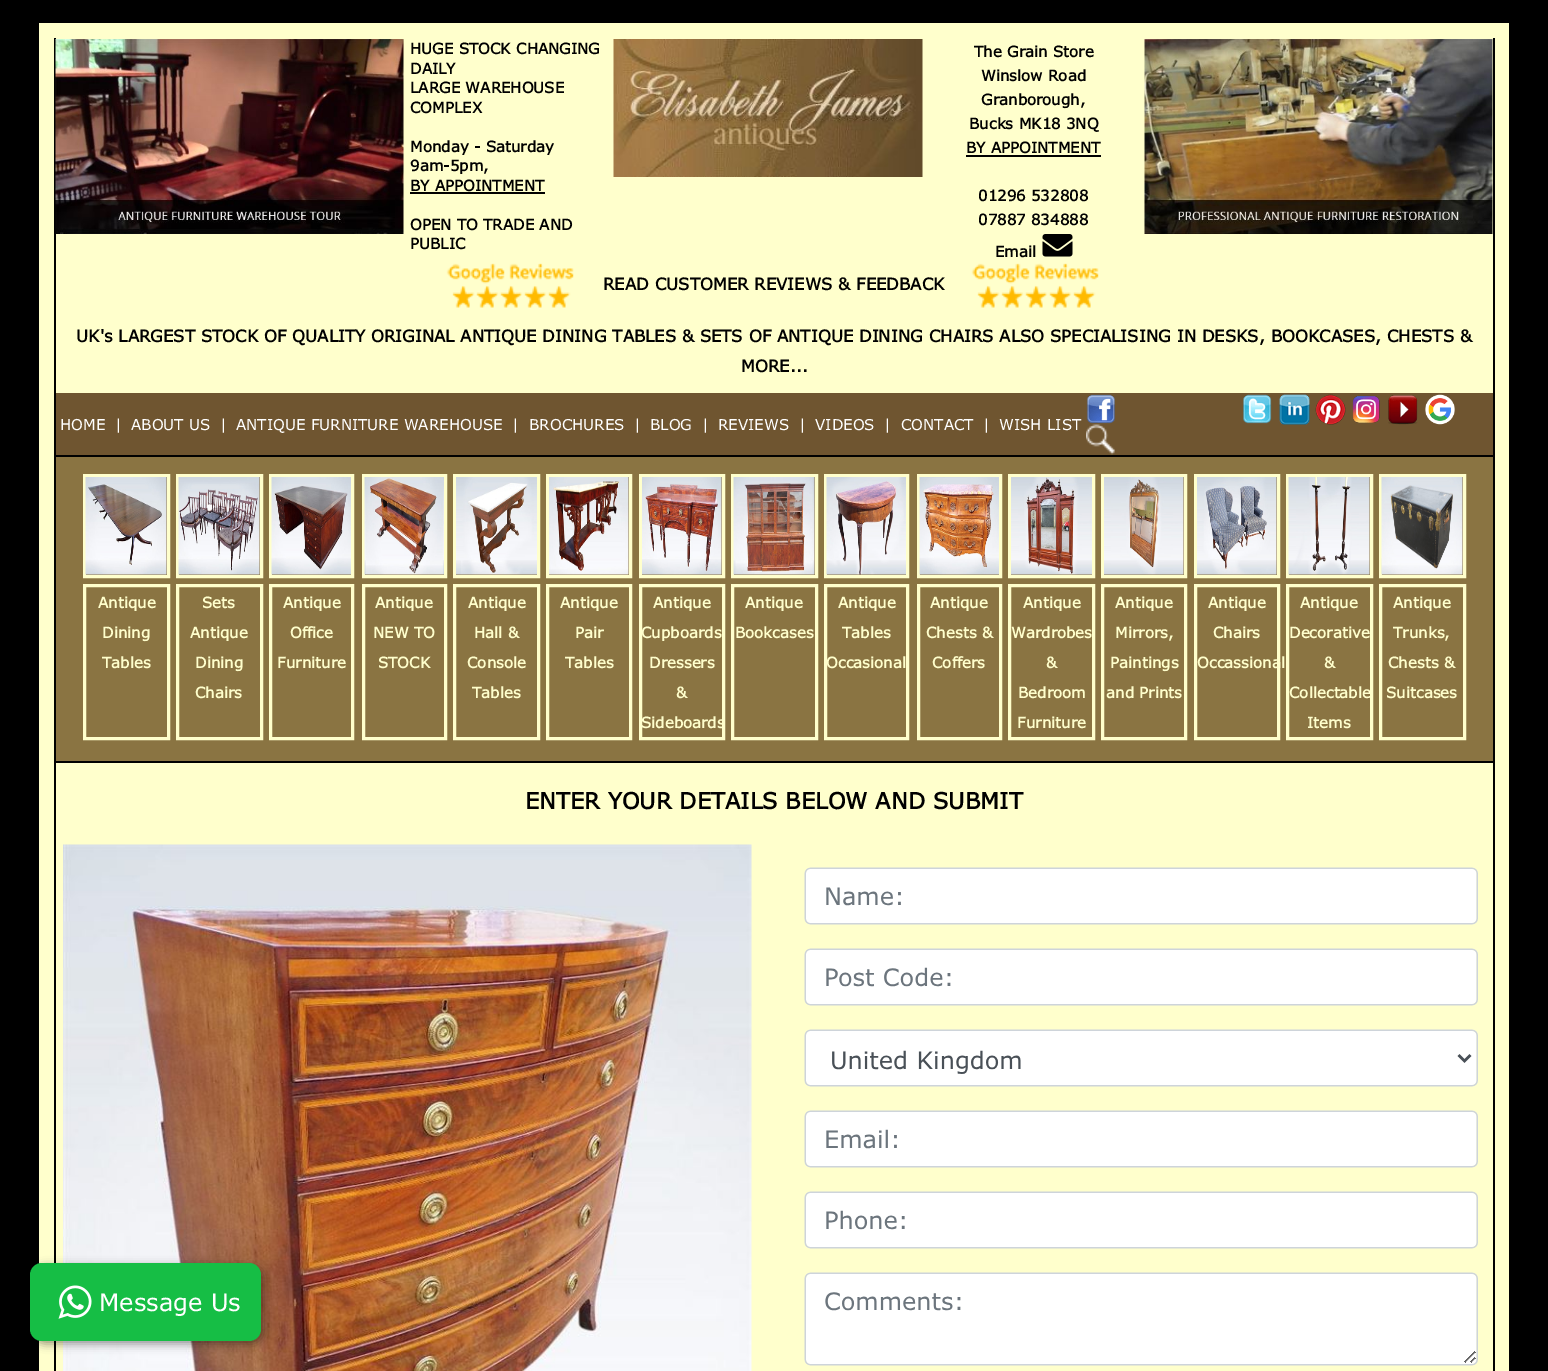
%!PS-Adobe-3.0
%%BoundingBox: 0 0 1548 1371
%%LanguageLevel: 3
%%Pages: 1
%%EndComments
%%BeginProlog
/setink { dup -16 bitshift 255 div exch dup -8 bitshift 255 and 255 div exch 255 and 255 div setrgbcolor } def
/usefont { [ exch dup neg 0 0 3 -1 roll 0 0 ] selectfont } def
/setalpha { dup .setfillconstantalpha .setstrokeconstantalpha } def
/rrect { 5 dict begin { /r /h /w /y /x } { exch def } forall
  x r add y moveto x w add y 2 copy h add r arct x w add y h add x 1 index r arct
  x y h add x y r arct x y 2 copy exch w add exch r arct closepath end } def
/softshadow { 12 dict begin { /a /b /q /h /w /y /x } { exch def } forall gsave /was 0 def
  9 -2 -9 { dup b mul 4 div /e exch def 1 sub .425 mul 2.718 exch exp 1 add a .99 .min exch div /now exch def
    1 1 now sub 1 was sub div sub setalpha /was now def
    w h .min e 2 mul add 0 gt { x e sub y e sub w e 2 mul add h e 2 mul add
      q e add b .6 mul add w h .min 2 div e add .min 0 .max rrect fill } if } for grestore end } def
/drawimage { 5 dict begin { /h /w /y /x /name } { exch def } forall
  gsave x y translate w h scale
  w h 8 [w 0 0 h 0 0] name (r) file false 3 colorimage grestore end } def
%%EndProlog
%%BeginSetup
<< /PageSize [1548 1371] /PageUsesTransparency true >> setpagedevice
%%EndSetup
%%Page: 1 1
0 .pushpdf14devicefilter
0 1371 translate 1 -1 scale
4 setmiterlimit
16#000000 setink
0 0 1548 1371 rectfill
[
    [39 23 1470 1348 16#FFFFCC]
    [1493 38 2 1333 16#000000]
    [54 38 2 1333 16#000000]
] { aload pop setink rectfill } forall
(img1.raw) 55 39 349 195 drawimage
/Verdana-Bold 15 usefont
[
    [(HUGE STOCK CHANGING) 410 54]
    [(DAILY) 410 74]
    [(LARGE WAREHOUSE) 410 93]
    [(COMPLEX) 410 113]
    [(Monday - Saturday) 410 152]
    [(9am-5pm,) 410 171]
    [(BY APPOINTMENT) 410 191]
] { aload pop moveto show } forall
410 192 135 2 rectfill
410 230 moveto (OPEN TO TRADE AND) show
410 249 moveto (PUBLIC) show
(img2.raw) 613 39 310 138 drawimage
[
    [(The Grain Store) 974 57]
    [(Winslow Road) 981 81]
    [(Granborough,) 981 105]
    [(Bucks MK18 3NQ) 969 129]
    [(BY APPOINTMENT) 966 153]
] { aload pop moveto show } forall
966 155 135 2 rectfill
[
    [(01296 532808) 978 201]
    [(07887 834888) 978 225]
    [(Email) 995 257]
] { aload pop moveto show } forall
(img3.raw) 1042 234 31 23 drawimage
(img4.raw) 446 263 128 45 drawimage
/Verdana-Bold 16.5 usefont
603 290 moveto (READ CUSTOMER REVIEWS & FEEDBACK) show
(img5.raw) 971 263 128 45 drawimage
(img6.raw) 1144 39 349 195 drawimage
76 342 moveto (UK's LARGEST STOCK OF QUALITY ORIGINAL ANTIQUE DINING TABLES & SETS OF ANTIQUE DINING CHAIRS ALSO SPECIALISING IN DESKS, BOOKCASES, CHESTS &) show
741 372 moveto (MORE...) show
16#6F5530 setink
56 393 1437 62 rectfill
/Verdana-Regular 15 usefont
16#FFFFFF setink
[
    [(HOME) 60 430]
    [(|) 115 430]
    [(ABOUT US) 131 430]
    [(|) 220 430]
    [(ANTIQUE FURNITURE WAREHOUSE) 236 430]
    [(|) 512 430]
    [(BROCHURES) 529 430]
    [(|) 634 430]
    [(BLOG) 650 430]
    [(|) 702 430]
    [(REVIEWS) 718 430]
    [(|) 799 430]
    [(VIDEOS) 815 430]
    [(|) 884 430]
    [(CONTACT) 901 430]
    [(|) 983 430]
    [(WISH LIST) 999 430]
] { aload pop moveto show } forall
(img7.raw) 1086 394 29 30 drawimage
(img8.raw) 1243 394 29 30 drawimage
(img9.raw) 1279 394 31 31 drawimage
(img10.raw) 1315 394 31 31 drawimage
(img11.raw) 1352 395 28 28 drawimage
(img12.raw) 1388 395 30 30 drawimage
(img13.raw) 1425 394 30 31 drawimage
(img14.raw) 1086 424 29 31 drawimage
[
    [56 457 1437 304 16#8A7442]
    [56 455 1437 2 16#000000]
    [56 761 1437 2 16#000000]
] { aload pop setink rectfill } forall
16#FFFFCC setink
3 setlinewidth
84.5 475.5 84 101 rectstroke
(img15.raw) 85 477 82 98 drawimage
84.5 585.5 84 153 rectstroke
/Verdana-Bold 15 usefont
[
    [(Antique) 98 608]
    [(Dining) 102 638]
    [(Tables) 102 668]
] { aload pop moveto show } forall
177.5 475.5 84 101 rectstroke
(img16.raw) 178 477 82 98 drawimage
177.5 585.5 84 153 rectstroke
[
    [(Sets) 202 608]
    [(Antique) 190 638]
    [(Dining) 195 668]
    [(Chairs) 195 698]
] { aload pop moveto show } forall
270.5 475.5 82 101 rectstroke
(img17.raw) 271 477 80 98 drawimage
270.5 585.5 82 153 rectstroke
[
    [(Antique) 283 608]
    [(Office) 290 638]
    [(Furniture) 277 668]
] { aload pop moveto show } forall
363.5 475.5 82 101 rectstroke
(img18.raw) 364 477 80 98 drawimage
363.5 585.5 82 153 rectstroke
[
    [(Antique) 375 608]
    [(NEW TO) 373 638]
    [(STOCK) 378 668]
] { aload pop moveto show } forall
454.5 475.5 84 101 rectstroke
(img19.raw) 456 477 81 98 drawimage
454.5 585.5 84 153 rectstroke
[
    [(Antique) 468 608]
    [(Hall &) 474 638]
    [(Console) 467 668]
    [(Tables) 472 698]
] { aload pop moveto show } forall
547.5 475.5 83 101 rectstroke
(img20.raw) 549 477 80 98 drawimage
547.5 585.5 83 153 rectstroke
[
    [(Antique) 560 608]
    [(Pair) 575 638]
    [(Tables) 565 668]
] { aload pop moveto show } forall
640.5 475.5 83 101 rectstroke
(img21.raw) 642 477 80 98 drawimage
640.5 585.5 83 153 rectstroke
[
    [(Antique) 653 608]
    [(Cupboards) 641 638]
    [(Dressers) 649 668]
    [(&) 676 698]
    [(Sideboards) 641 728]
] { aload pop moveto show } forall
732.5 475.5 84 101 rectstroke
(img22.raw) 733 477 82 98 drawimage
732.5 585.5 84 153 rectstroke
745 608 moveto (Antique) show
735 638 moveto (Bookcases) show
825.5 475.5 82 101 rectstroke
(img23.raw) 826 477 80 98 drawimage
825.5 585.5 82 153 rectstroke
[
    [(Antique) 838 608]
    [(Tables) 842 638]
    [(Occasional) 826 668]
] { aload pop moveto show } forall
918.5 475.5 82 101 rectstroke
(img24.raw) 919 477 80 98 drawimage
918.5 585.5 82 153 rectstroke
[
    [(Antique) 930 608]
    [(Chests &) 926 638]
    [(Coffers) 932 668]
] { aload pop moveto show } forall
1009.5 475.5 84 101 rectstroke
(img25.raw) 1011 477 81 98 drawimage
1009.5 585.5 84 153 rectstroke
[
    [(Antique) 1023 608]
    [(Wardrobes) 1011 638]
    [(&) 1046 668]
    [(Bedroom) 1018 698]
    [(Furniture) 1017 728]
] { aload pop moveto show } forall
1102.5 475.5 83 101 rectstroke
(img26.raw) 1104 477 80 98 drawimage
1102.5 585.5 83 153 rectstroke
[
    [(Antique) 1115 608]
    [(Mirrors,) 1115 638]
    [(Paintings) 1110 668]
    [(and Prints) 1106 698]
] { aload pop moveto show } forall
1195.5 475.5 83 101 rectstroke
(img27.raw) 1197 477 80 98 drawimage
1195.5 585.5 83 153 rectstroke
[
    [(Antique) 1208 608]
    [(Chairs) 1213 638]
    [(Occassional) 1197 668]
] { aload pop moveto show } forall
1287.5 475.5 84 101 rectstroke
(img28.raw) 1288 477 82 98 drawimage
1287.5 585.5 84 153 rectstroke
[
    [(Antique) 1300 608]
    [(Decorative) 1289 638]
    [(&) 1324 668]
    [(Collectable) 1289 698]
    [(Items) 1307 728]
] { aload pop moveto show } forall
1380.5 475.5 84 101 rectstroke
(img29.raw) 1381 477 82 98 drawimage
1380.5 585.5 84 153 rectstroke
[
    [(Antique) 1393 608]
    [(Trunks,) 1393 638]
    [(Chests &) 1388 668]
    [(Suitcases) 1386 698]
] { aload pop moveto show } forall
/Verdana-Bold 22.5 usefont
16#000000 setink
525 809 moveto (ENTER YOUR DETAILS BELOW AND SUBMIT) show
(img30.raw) 63 844 689 527 drawimage
(img31.raw) 804 867 674 499 drawimage
33 1266 231 78 12 4.5 0.4 softshadow
16#16BE45 setink
30 1263 231 78 12 rrect fill
(img32.raw) 58 1285 34 34 drawimage
/Verdana-Regular 24 usefont
16#FFFFFF setink
99 1311 moveto (Message Us) show
.poppdf14devicefilter showpage
%%EOF
